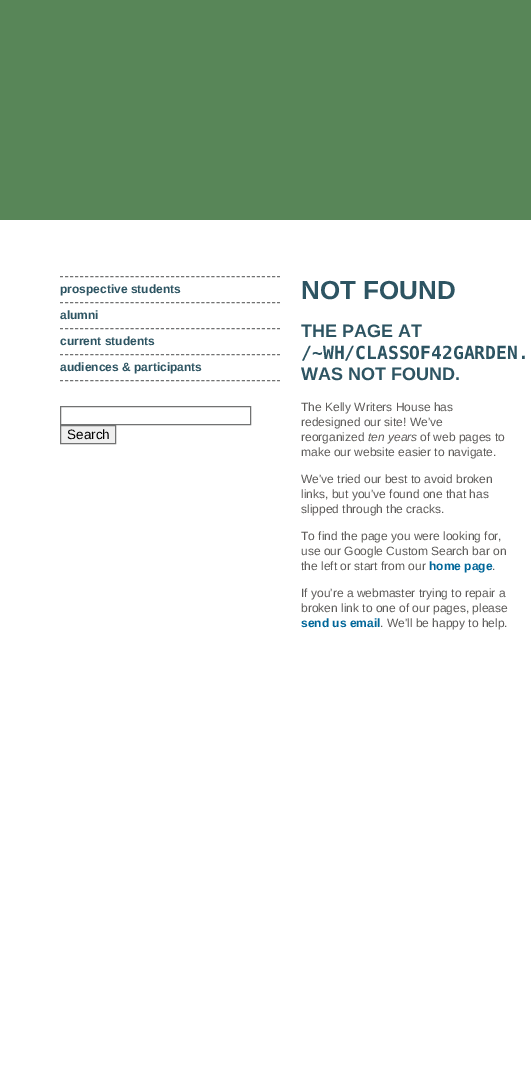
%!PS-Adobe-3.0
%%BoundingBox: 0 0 531 1083
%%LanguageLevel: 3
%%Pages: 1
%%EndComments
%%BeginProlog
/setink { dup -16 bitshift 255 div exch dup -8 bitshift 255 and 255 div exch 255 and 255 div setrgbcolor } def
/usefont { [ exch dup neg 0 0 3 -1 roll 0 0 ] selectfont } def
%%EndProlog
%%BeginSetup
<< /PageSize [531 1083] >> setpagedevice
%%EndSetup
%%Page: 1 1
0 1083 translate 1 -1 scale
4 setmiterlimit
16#FFFFFF setink
0 0 531 1083 rectfill
16#588658 setink
0 0 531 220 rectfill
16#717272 setink
[3 2.05] 0 setdash
60 276.5 moveto 280 276.5 lineto stroke
60 302.5 moveto 280 302.5 lineto stroke
/LiberationSans-Bold 12 usefont
16#2D5462 setink
60 293 moveto (prospective students) show
16#717272 setink
60 328.5 moveto 280 328.5 lineto stroke
16#2D5462 setink
60 319 moveto (alumni) show
16#717272 setink
60 354.5 moveto 280 354.5 lineto stroke
16#2D5462 setink
60 345 moveto (current students) show
16#717272 setink
60 380.5 moveto 280 380.5 lineto stroke
16#2D5462 setink
60 371 moveto (audiences & participants) show
16#717272 setink
[] 0 setdash
60.5 406.5 190 18 rectstroke
16#EFEFEF setink
60.5 425.5 moveto 115.5 425.5 lineto 115.5 443.5 lineto 60.5 443.5 lineto closepath gsave fill grestore
16#717272 setink
stroke
/LiberationSans-Regular 13.5 usefont
16#000000 setink
67 439 moveto (Search) show
/LiberationSans-Bold 26 usefont
16#2D5462 setink
301 299 moveto (NOT FOUND) show
/LiberationSans-Bold 18 usefont
301 337 moveto (THE PAGE AT) show
/DejaVuSansMono-Bold 18 usefont
301 359 moveto (/~WH/CLASSOF42GARDEN.) show
/LiberationSans-Bold 18 usefont
301 380 moveto (WAS NOT FOUND.) show
/LiberationSans-Regular 12 usefont
16#5D5B59 setink
[
    [(The Kelly Writers House has) 301 411]
    [(redesigned our site! We've) 301 426]
    [(reorganized) 301 441]
] { aload pop moveto show } forall
/LiberationSans-Italic 12 usefont
368 441 moveto (ten years) show
/LiberationSans-Regular 12 usefont
[
    [(of web pages to) 420 441]
    [(make our website easier to navigate.) 301 456]
    [(We've tried our best to avoid broken) 301 483]
    [(links, but you've found one that has) 301 498]
    [(slipped through the cracks.) 301 513]
    [(To find the page you were looking for,) 301 540]
    [(use our Google Custom Search bar on) 301 555]
    [(the left or start from our) 301 570]
] { aload pop moveto show } forall
/LiberationSans-Bold 12 usefont
16#006699 setink
429 570 moveto (home page) show
/LiberationSans-Regular 12 usefont
16#5D5B59 setink
[
    [(.) 492 570]
    [(If you're a webmaster trying to repair a) 301 597]
    [(broken link to one of our pages, please) 301 612]
] { aload pop moveto show } forall
/LiberationSans-Bold 12 usefont
16#006699 setink
301 627 moveto (send us email) show
/LiberationSans-Regular 12 usefont
16#5D5B59 setink
380 627 moveto (. We'll be happy to help.) show
showpage
%%EOF
